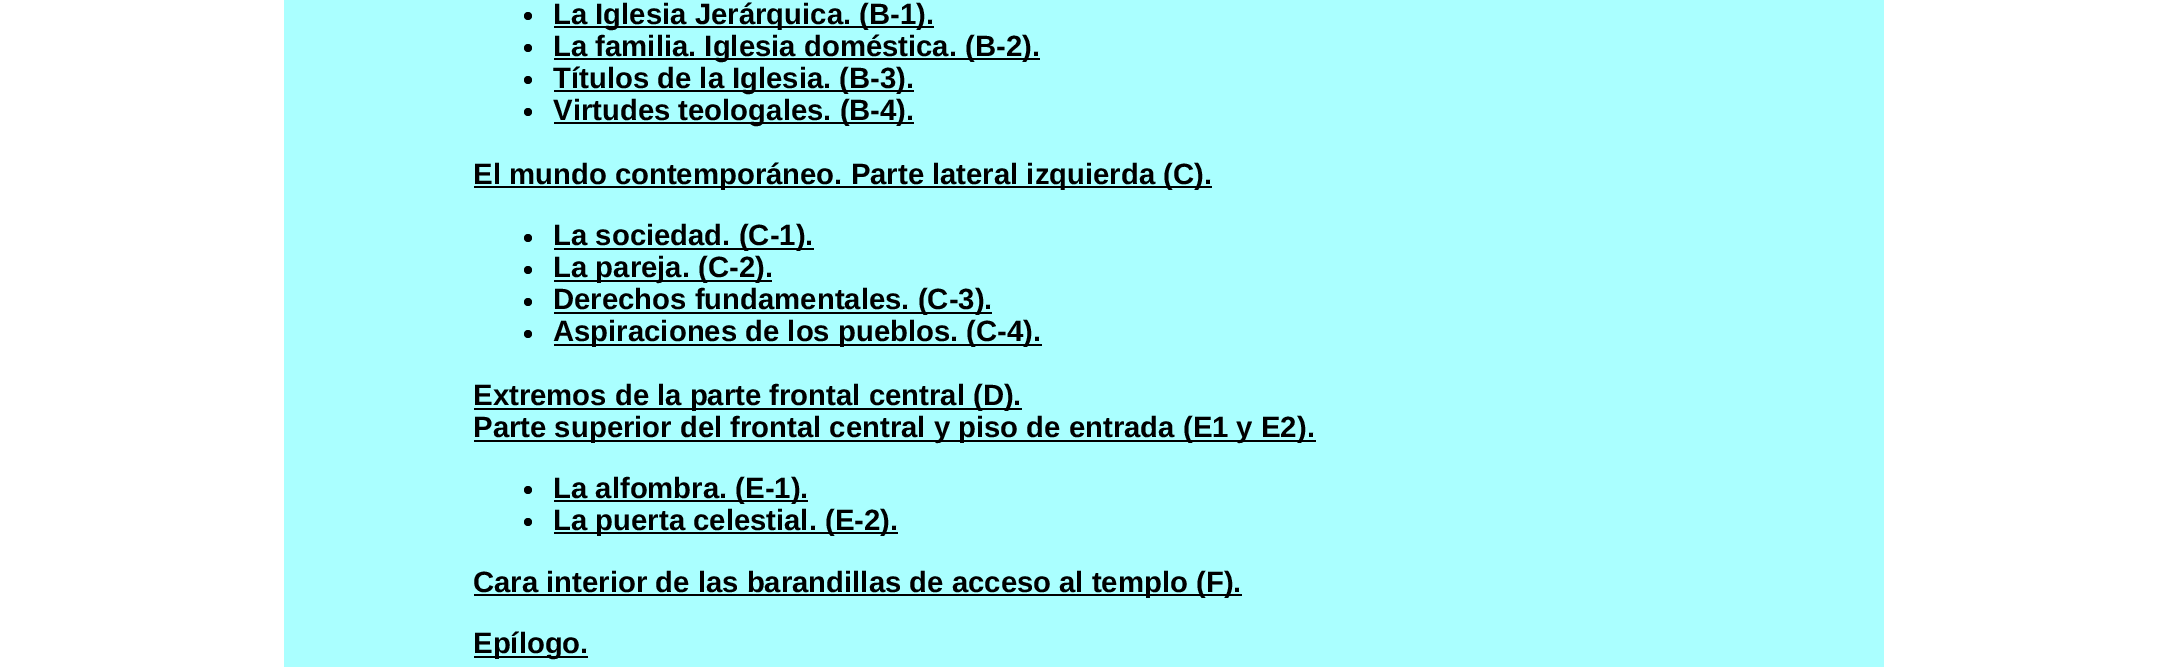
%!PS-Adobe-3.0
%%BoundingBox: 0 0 2166 667
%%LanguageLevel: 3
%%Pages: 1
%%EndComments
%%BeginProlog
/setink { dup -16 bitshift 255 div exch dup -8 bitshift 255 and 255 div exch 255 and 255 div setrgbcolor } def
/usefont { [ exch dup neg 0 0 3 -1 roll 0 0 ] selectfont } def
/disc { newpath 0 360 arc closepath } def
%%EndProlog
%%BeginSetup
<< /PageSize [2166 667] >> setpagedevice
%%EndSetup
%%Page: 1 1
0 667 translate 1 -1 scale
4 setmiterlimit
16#FFFFFF setink
0 0 2166 667 rectfill
16#AAFFFF setink
284 0 1600 667 rectfill
16#000000 setink
528 16 4 disc fill
554 26 380 2 rectfill
/LiberationSans-Bold 29.3 usefont
553 24 moveto (La Iglesia Jerárquica. \(B-1\).) show
528 48 4 disc fill
554 58 486 2 rectfill
553 56 moveto (La familia. Iglesia doméstica. \(B-2\).) show
528 80 4 disc fill
554 90 360 2 rectfill
553 88 moveto (Títulos de la Iglesia. \(B-3\).) show
528 112 4 disc fill
554 122 360 2 rectfill
553 120 moveto (Virtudes teologales. \(B-4\).) show
474 186 738 2 rectfill
473 184 moveto (El mundo contemporáneo. Parte lateral izquierda \(C\).) show
528 238 4 disc fill
554 248 260 2 rectfill
553 245 moveto (La sociedad. \(C-1\).) show
528 270 4 disc fill
554 280 218 2 rectfill
553 277 moveto (La pareja. \(C-2\).) show
528 302 4 disc fill
554 312 438 2 rectfill
553 309 moveto (Derechos fundamentales. \(C-3\).) show
528 334 4 disc fill
554 344 488 2 rectfill
553 341 moveto (Aspiraciones de los pueblos. \(C-4\).) show
474 408 548 2 rectfill
473 405 moveto (Extremos de la parte frontal central \(D\).) show
474 440 842 2 rectfill
473 437 moveto (Parte superior del frontal central y piso de entrada \(E1 y E2\).) show
528 490 4 disc fill
554 500 254 2 rectfill
553 498 moveto (La alfombra. \(E-1\).) show
528 522 4 disc fill
554 532 344 2 rectfill
553 530 moveto (La puerta celestial. \(E-2\).) show
474 594 768 2 rectfill
473 592 moveto (Cara interior de las barandillas de acceso al templo \(F\).) show
474 656 114 2 rectfill
473 653 moveto (Epílogo.) show
showpage
%%EOF
